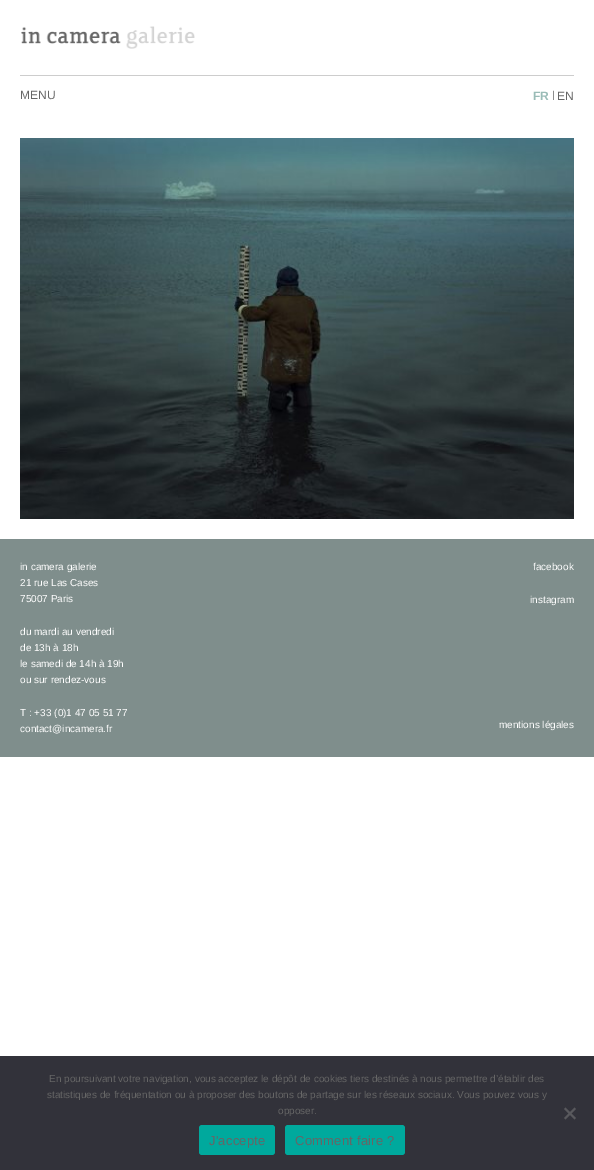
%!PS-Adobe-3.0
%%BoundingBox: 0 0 594 1170
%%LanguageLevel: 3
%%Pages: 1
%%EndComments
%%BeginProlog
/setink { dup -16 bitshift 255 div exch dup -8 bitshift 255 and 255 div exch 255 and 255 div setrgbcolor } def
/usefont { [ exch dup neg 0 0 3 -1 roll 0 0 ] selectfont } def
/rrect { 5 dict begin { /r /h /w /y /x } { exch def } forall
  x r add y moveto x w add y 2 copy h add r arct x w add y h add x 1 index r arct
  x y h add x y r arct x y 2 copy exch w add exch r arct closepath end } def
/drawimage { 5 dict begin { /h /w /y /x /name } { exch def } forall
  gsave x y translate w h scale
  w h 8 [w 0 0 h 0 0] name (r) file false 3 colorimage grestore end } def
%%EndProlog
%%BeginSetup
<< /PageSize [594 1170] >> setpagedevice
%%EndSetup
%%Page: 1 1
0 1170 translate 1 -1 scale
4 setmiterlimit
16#FFFFFF setink
0 0 594 1170 rectfill
16#CDCDCD setink
20 75 554 1 rectfill
(img1.raw) 21 26 174 23 drawimage
/LiberationSans-Regular 12 usefont
16#666666 setink
20 99 moveto (MENU) show
/LiberationSans-Bold 12 usefont
16#9ABCB7 setink
533 100 moveto (FR) show
/LiberationSans-Regular 10 usefont
16#666666 setink
552 98 moveto (|) show
/LiberationSans-Regular 12 usefont
557 100 moveto (EN) show
(img2.raw) 20 138 554 381 drawimage
16#7F8E8C setink
0 539 594 218 rectfill
/LiberationSans-Regular 10 usefont
16#FFFFFF setink
[
    [(in camera galerie) 20 570]
    [(21 rue Las Cases) 20 586]
    [(75007 Paris) 20 602]
    [(du mardi au vendredi) 20 635]
    [(de 13h à 18h) 20 651]
    [(le samedi de 14h à 19h) 20 667]
    [(ou sur rendez-vous) 20 683]
    [(T : +33 \(0\)1 47 05 51 77) 20 716]
    [(contact@incamera.fr) 20 732]
    [(facebook) 533 570]
    [(instagram) 530 603]
    [(mentions légales) 499 728]
] { aload pop moveto show } forall
16#32323A setink
0 1056 594 114 rectfill
16#666666 setink
[
    [(En poursuivant votre navigation, vous acceptez le dépôt de cookies tiers destinés à nous permettre d’établir des) 49 1082]
    [(statistiques de fréquentation ou à proposer des boutons de partage sur les réseaux sociaux. Vous pouvez vous y) 47 1098]
    [(opposer.) 278 1114]
] { aload pop moveto show } forall
16#59595D setink
574.5 1107.5 moveto 576 1109 lineto 565.5 1119.5 lineto 564 1118 lineto closepath fill
564 1109 moveto 565.5 1107.5 lineto 576 1118 lineto 574.5 1119.5 lineto closepath fill
16#00A99D setink
199 1125 76 30 3 rrect fill
/LiberationSans-Regular 13 usefont
16#666666 setink
209 1145 moveto 0.25 0 (J'accepte) ashow
16#00A99D setink
285 1125 120 30 3 rrect fill
16#666666 setink
295 1145 moveto 0.25 0 (Comment faire ?) ashow
showpage
%%EOF
